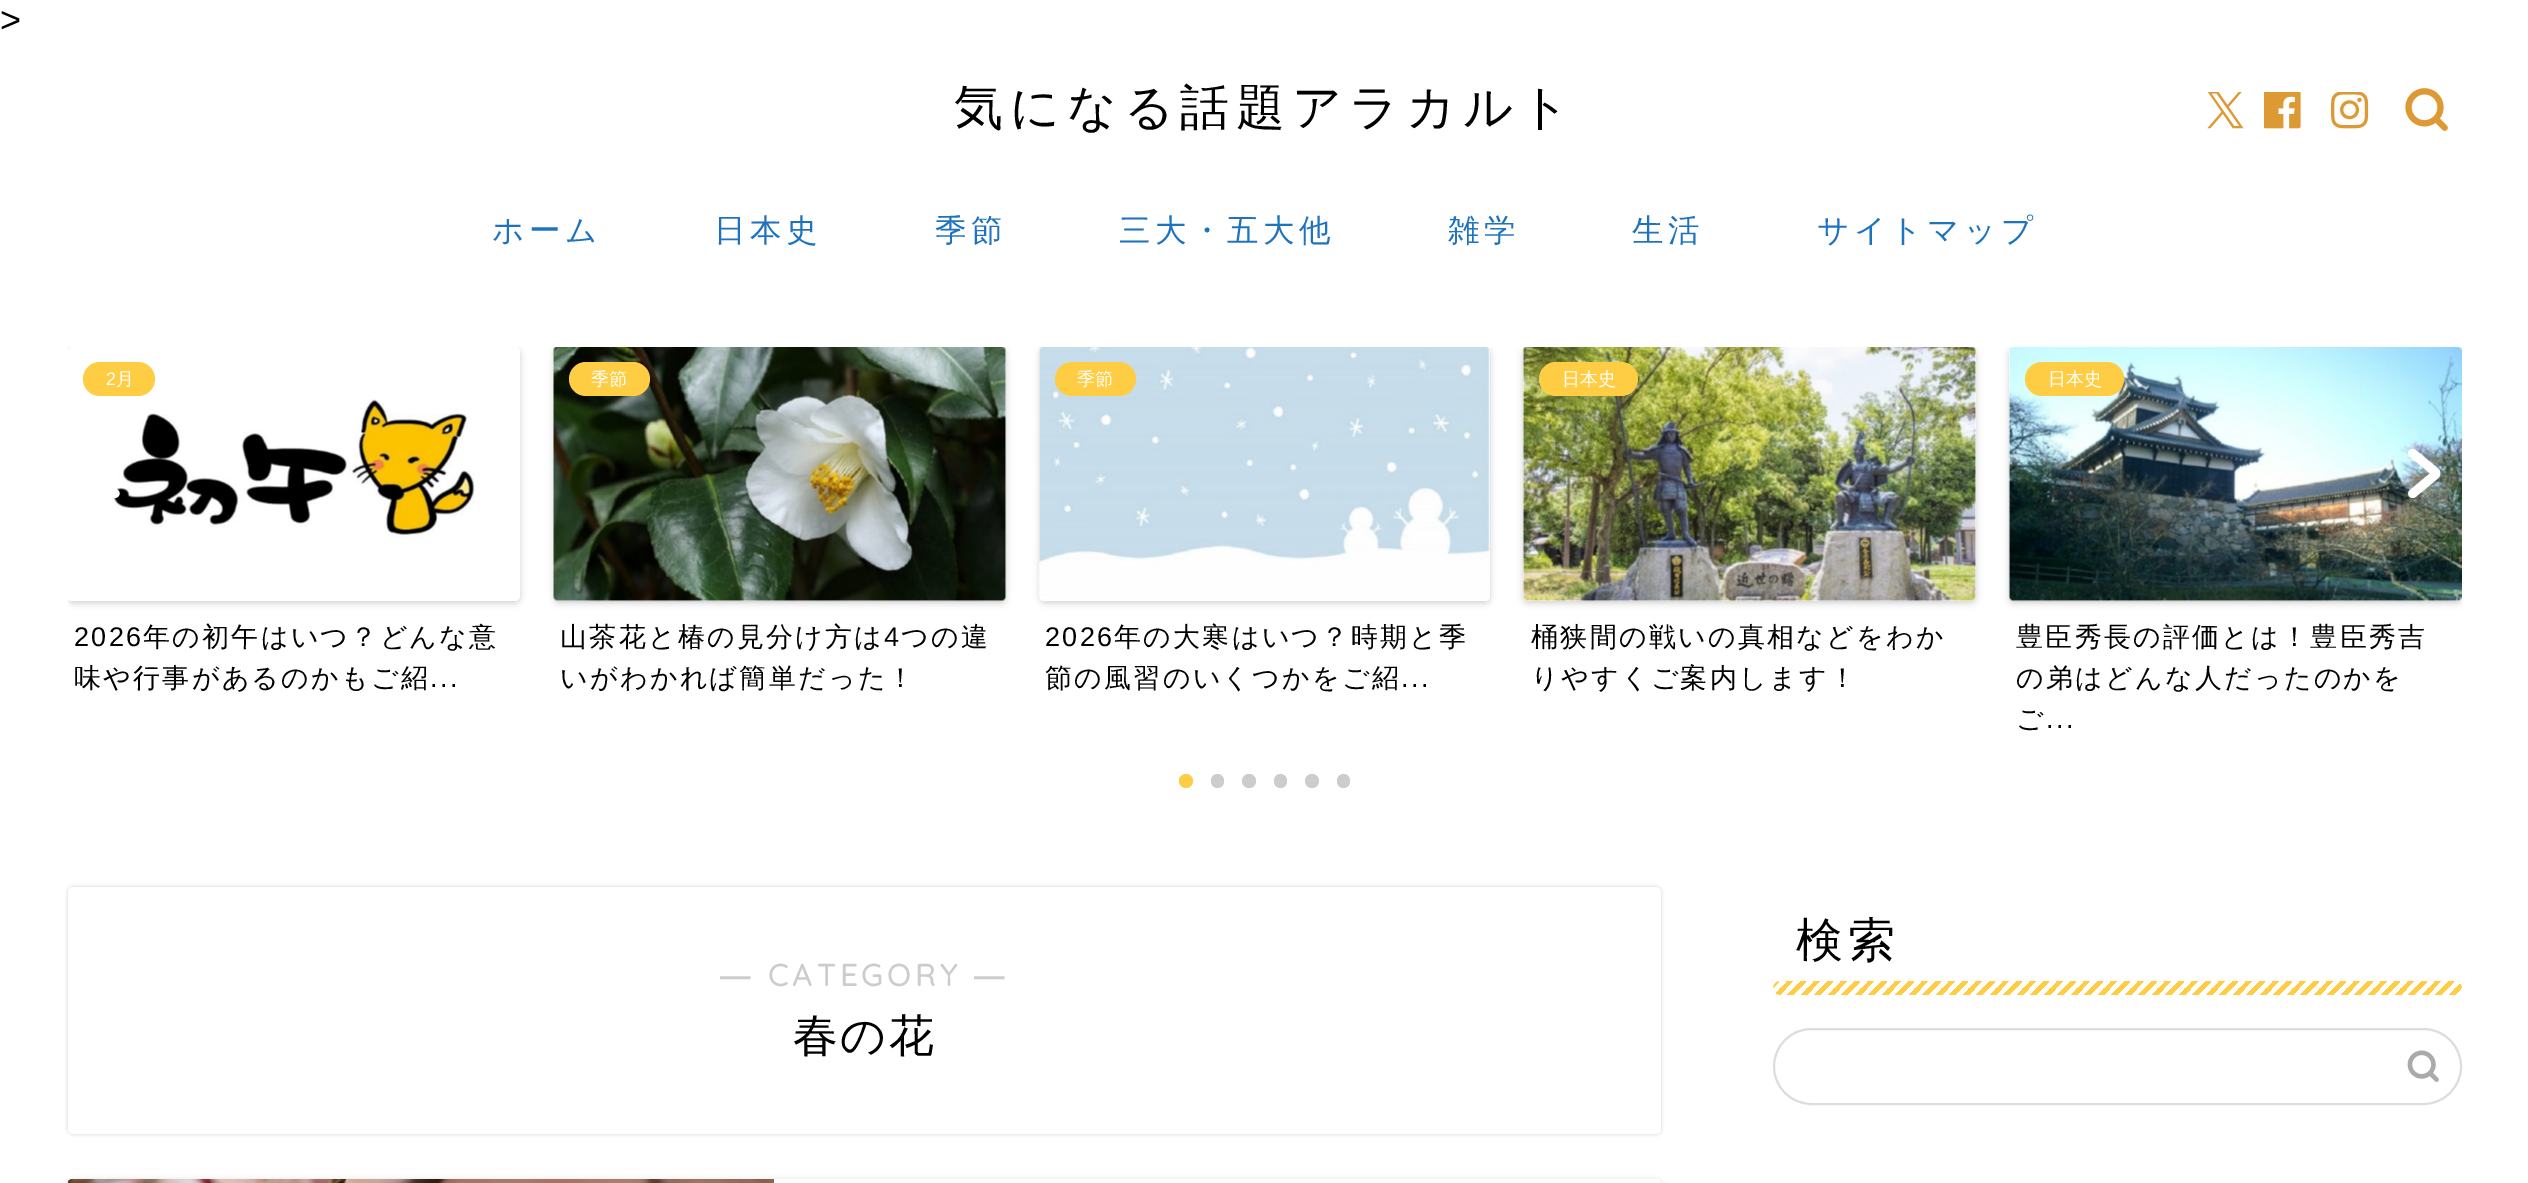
%!PS-Adobe-3.0
%%BoundingBox: 0 0 2528 1183
%%LanguageLevel: 3
%%Pages: 1
%%EndComments
%%BeginProlog
/setink { dup -16 bitshift 255 div exch dup -8 bitshift 255 and 255 div exch 255 and 255 div setrgbcolor } def
/usefont { [ exch dup neg 0 0 3 -1 roll 0 0 ] selectfont } def
/setalpha { dup .setfillconstantalpha .setstrokeconstantalpha } def
/disc { newpath 0 360 arc closepath } def
/rrect { 5 dict begin { /r /h /w /y /x } { exch def } forall
  x r add y moveto x w add y 2 copy h add r arct x w add y h add x 1 index r arct
  x y h add x y r arct x y 2 copy exch w add exch r arct closepath end } def
/softshadow { 12 dict begin { /a /b /q /h /w /y /x } { exch def } forall gsave /was 0 def
  9 -2 -9 { dup b mul 4 div /e exch def 1 sub .425 mul 2.718 exch exp 1 add a .99 .min exch div /now exch def
    1 1 now sub 1 was sub div sub setalpha /was now def
    w h .min e 2 mul add 0 gt { x e sub y e sub w e 2 mul add h e 2 mul add
      q e add b .6 mul add w h .min 2 div e add .min 0 .max rrect fill } if } for grestore end } def
/drawimage { 5 dict begin { /h /w /y /x /name } { exch def } forall
  gsave x y translate w h scale
  w h 8 [w 0 0 h 0 0] name (r) file false 3 colorimage grestore end } def
%%EndProlog
%%BeginSetup
<< /PageSize [2528 1183] /PageUsesTransparency true >> setpagedevice
%%EndSetup
%%Page: 1 1
0 .pushpdf14devicefilter
0 1183 translate 1 -1 scale
4 setmiterlimit
16#FFFFFF setink
0 0 2528 1183 rectfill
/LiberationSans-Regular 36 usefont
16#000000 setink
0 32 moveto 2.25 0 (>) ashow
/WenQuanYiZenHei-Medium 49 usefont
954 124 moveto 6.75 0 (気になる話題アラカルト) ashow
(img1.raw) 2207 92 37 37 drawimage
(img2.raw) 2264 92 37 37 drawimage
(img3.raw) 2331 92 38 37 drawimage
(img4.raw) 2405 88 43 43 drawimage
/WenQuanYiZenHei-Medium 31.5 usefont
16#1E73BE setink
492 241 moveto 4.5 0 (ホーム) ashow
714 241 moveto 4.5 0 (日本史) ashow
935 241 moveto 4.5 0 (季節) ashow
1119 241 moveto 4.5 0 (三大・五大他) ashow
1448 241 moveto 4.5 0 (雑学) ashow
1632 241 moveto 4.5 0 (生活) ashow
1817 241 moveto 4.5 0 (サイトマップ) ashow
gsave
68 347 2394 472 rectclip
16#000000 setink
68 349 452 254 5 3.5 0.18 softshadow
grestore
16#FFFFFF setink
68 347 452 254 5 rrect fill
16#FFCD44 setink
83 362 72 34 17 rrect fill
/LiberationSans-Regular 18 usefont
16#FFFFFF setink
106 385 moveto (2) show
/WenQuanYiZenHei-Medium 18 usefont
116 385 moveto (月) show
(img5.raw) 68 399 450 202 drawimage
/LiberationSans-Regular 27 usefont
16#000000 setink
74 646 moveto 2.25 0 (2026) ashow
/WenQuanYiZenHei-Medium 27 usefont
143 646 moveto 2.25 0 (年の初午はいつ？どんな意) ashow
74 687 moveto 2.25 0 (味や行事があるのかもご紹) ashow
/LiberationSans-Regular 27 usefont
430 687 moveto 2.25 0 (...) ashow
gsave
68 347 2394 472 rectclip
554 349 452 254 5 3.5 0.18 softshadow
grestore
16#FFFFFF setink
554 347 452 254 5 rrect fill
(img6.raw) 553 347 454 255 drawimage
16#FFCD44 setink
569 362 81 34 17 rrect fill
/WenQuanYiZenHei-Medium 18 usefont
16#FFFFFF setink
591 385 moveto (季節) show
/WenQuanYiZenHei-Medium 27 usefont
16#000000 setink
560 646 moveto 2.25 0 (山茶花と椿の見分け方は) ashow
/LiberationSans-Regular 27 usefont
884 646 moveto 2.25 0 (4) ashow
/WenQuanYiZenHei-Medium 27 usefont
901 646 moveto 2.25 0 (つの違) ashow
560 687 moveto 2.25 0 (いがわかれば簡単だった！) ashow
gsave
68 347 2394 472 rectclip
1040 349 450 254 5 3.5 0.18 softshadow
grestore
16#FFFFFF setink
1040 347 450 254 5 rrect fill
(img7.raw) 1039 347 451 254 drawimage
16#FFCD44 setink
1055 362 81 34 17 rrect fill
/WenQuanYiZenHei-Medium 18 usefont
16#FFFFFF setink
1077 385 moveto (季節) show
/LiberationSans-Regular 27 usefont
16#000000 setink
1045 646 moveto 2.25 0 (2026) ashow
/WenQuanYiZenHei-Medium 27 usefont
1114 646 moveto 2.25 0 (年の大寒はいつ？時期と季) ashow
1045 687 moveto 2.25 0 (節の風習のいくつかをご紹) ashow
/LiberationSans-Regular 27 usefont
1401 687 moveto 2.25 0 (...) ashow
gsave
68 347 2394 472 rectclip
1523 349 453 254 5 3.5 0.18 softshadow
grestore
16#FFFFFF setink
1523 347 453 254 5 rrect fill
(img8.raw) 1522 347 454 255 drawimage
16#FFCD44 setink
1539 362 99 34 17 rrect fill
/WenQuanYiZenHei-Medium 18 usefont
16#FFFFFF setink
1562 385 moveto (日本史) show
/WenQuanYiZenHei-Medium 27 usefont
16#000000 setink
1531 646 moveto 2.25 0 (桶狭間の戦いの真相などをわか) ashow
1531 687 moveto 2.25 0 (りやすくご案内します！) ashow
gsave
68 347 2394 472 rectclip
2009 349 453 254 5 3.5 0.18 softshadow
grestore
16#FFFFFF setink
2009 347 453 254 5 rrect fill
(img9.raw) 2008 347 454 255 drawimage
16#FFCD44 setink
2025 362 99 34 17 rrect fill
/WenQuanYiZenHei-Medium 18 usefont
16#FFFFFF setink
2048 385 moveto (日本史) show
/WenQuanYiZenHei-Medium 27 usefont
16#000000 setink
2016 646 moveto 2.25 0 (豊臣秀長の評価とは！豊臣秀吉) ashow
2016 687 moveto 2.25 0 (の弟はどんな人だったのかを) ashow
2016 728 moveto 2.25 0 (ご) ashow
/LiberationSans-Regular 27 usefont
2046 728 moveto 2.25 0 (...) ashow
(img10.raw) 113 488 7 11 drawimage
(img11.raw) 2408 448 33 51 drawimage
16#FFCD44 setink
1186 781 7 disc fill
16#CCCCCC setink
1211 774 13 14 6.5 rrect fill
1249 781 7 disc fill
1274 774 13 14 6.5 rrect fill
1312 781 7 disc fill
1337 774 13 14 6.5 rrect fill
/WenQuanYiZenHei-Medium 47 usefont
16#000000 setink
1796 956 moveto 4.5 0 (検索) ashow
(img12.raw) 1773 981 689 14 drawimage
16#DDDDDD setink
2 setlinewidth
1774 1029 687 75 37.5 rrect stroke
(img13.raw) 2407 1050 32 32 drawimage
16#000000 setink
68 887 1593 247 5 2 0.18 softshadow
16#FFFFFF setink
68 887 1593 247 5 rrect fill
/LiberationSans-Bold 30.5 usefont
16#CCCCCC setink
720 986 moveto 4.5 0 (―) ashow
/Quicksand-Bold 30.5 usefont
768 986 moveto 4.5 0 (CATEGORY) ashow
/LiberationSans-Bold 30.5 usefont
974 986 moveto 4.5 0 (―) ashow
/WenQuanYiZenHei-Medium 45 usefont
16#000000 setink
793 1051 moveto 2.25 0 (春の花) ashow
68 1181 1593 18 5 3.5 0.18 softshadow
16#FFFFFF setink
68 1179 1593 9 5 rrect fill
(img14.raw) 67 1179 707 4 drawimage
.poppdf14devicefilter showpage
%%EOF
